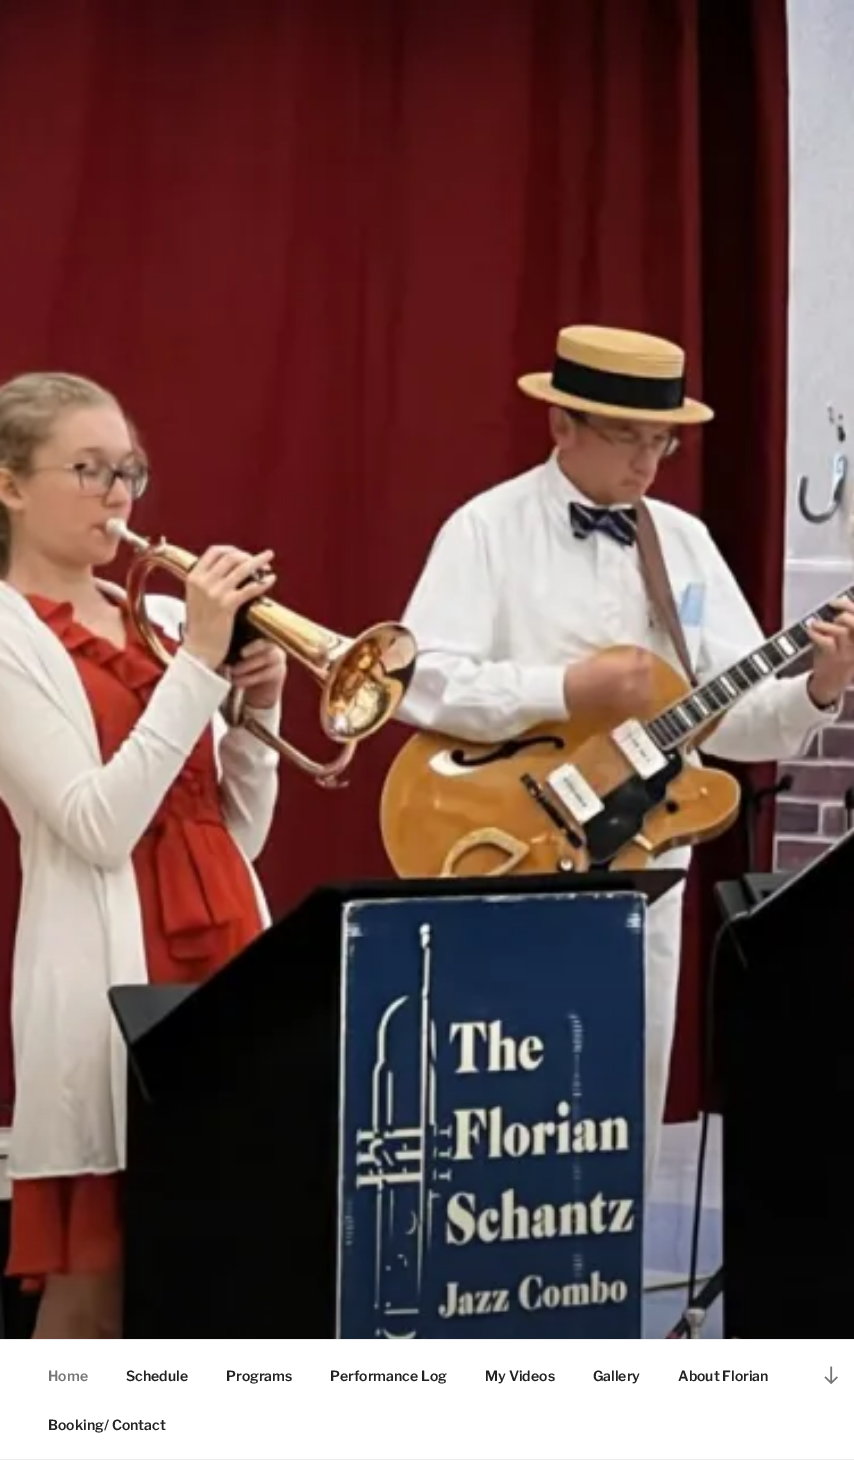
%!PS-Adobe-3.0
%%BoundingBox: 0 0 854 1460
%%LanguageLevel: 3
%%Pages: 1
%%EndComments
%%BeginProlog
/setink { dup -16 bitshift 255 div exch dup -8 bitshift 255 and 255 div exch 255 and 255 div setrgbcolor } def
/usefont { [ exch dup neg 0 0 3 -1 roll 0 0 ] selectfont } def
/drawimage { 5 dict begin { /h /w /y /x /name } { exch def } forall
  gsave x y translate w h scale
  w h 8 [w 0 0 h 0 0] name (r) file false 3 colorimage grestore end } def
%%EndProlog
%%BeginSetup
<< /PageSize [854 1460] >> setpagedevice
%%EndSetup
%%Page: 1 1
0 1460 translate 1 -1 scale
4 setmiterlimit
16#FFFFFF setink
0 0 854 1460 rectfill
(img1.raw) 0 0 854 1339 drawimage
16#EEEEEE setink
0 1339 854 1 rectfill
0 1459 854 1 rectfill
/LibreFranklin-Thin 14 usefont
16#767676 setink
48 1381 moveto (Home) show
16#222222 setink
[
    [(Schedule) 126 1381]
    [(Programs) 226 1381]
    [(Performance Log) 330 1381]
    [(My Videos) 485 1381]
    [(Gallery) 593 1381]
    [(About Florian) 678 1381]
    [(Booking/ Contact) 48 1430]
] { aload pop moveto show } forall
(img2.raw) 824 1366 14 18 drawimage
showpage
%%EOF
